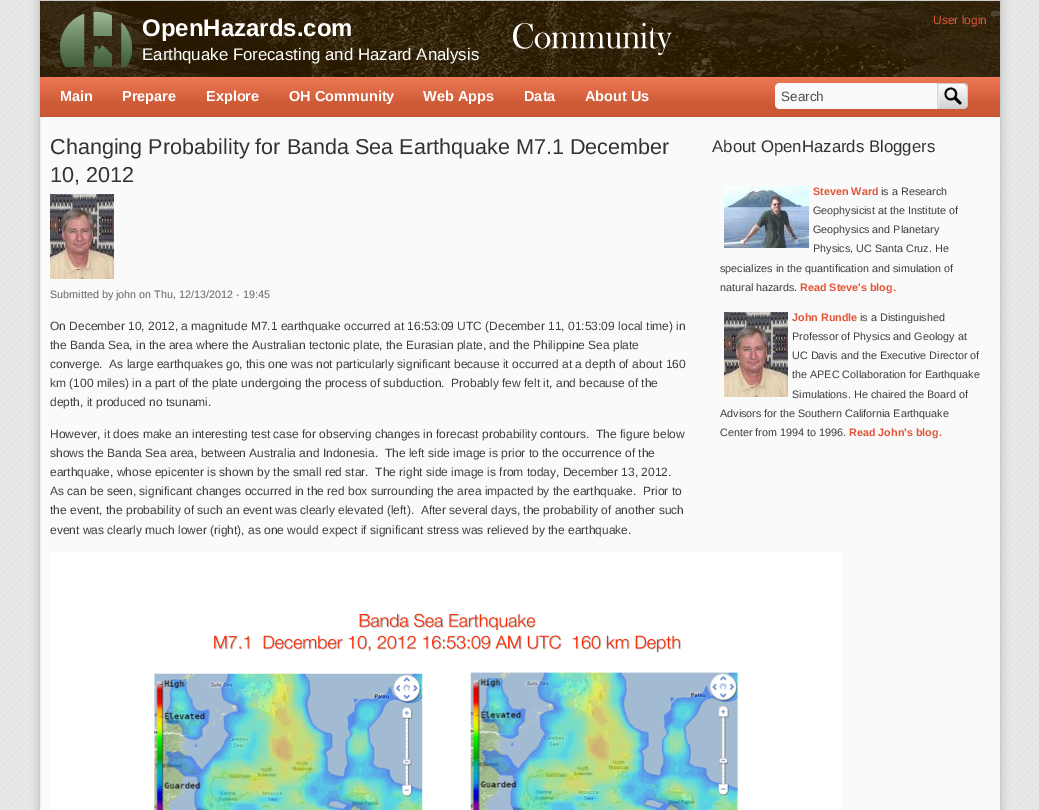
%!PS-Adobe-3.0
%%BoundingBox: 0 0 1039 810
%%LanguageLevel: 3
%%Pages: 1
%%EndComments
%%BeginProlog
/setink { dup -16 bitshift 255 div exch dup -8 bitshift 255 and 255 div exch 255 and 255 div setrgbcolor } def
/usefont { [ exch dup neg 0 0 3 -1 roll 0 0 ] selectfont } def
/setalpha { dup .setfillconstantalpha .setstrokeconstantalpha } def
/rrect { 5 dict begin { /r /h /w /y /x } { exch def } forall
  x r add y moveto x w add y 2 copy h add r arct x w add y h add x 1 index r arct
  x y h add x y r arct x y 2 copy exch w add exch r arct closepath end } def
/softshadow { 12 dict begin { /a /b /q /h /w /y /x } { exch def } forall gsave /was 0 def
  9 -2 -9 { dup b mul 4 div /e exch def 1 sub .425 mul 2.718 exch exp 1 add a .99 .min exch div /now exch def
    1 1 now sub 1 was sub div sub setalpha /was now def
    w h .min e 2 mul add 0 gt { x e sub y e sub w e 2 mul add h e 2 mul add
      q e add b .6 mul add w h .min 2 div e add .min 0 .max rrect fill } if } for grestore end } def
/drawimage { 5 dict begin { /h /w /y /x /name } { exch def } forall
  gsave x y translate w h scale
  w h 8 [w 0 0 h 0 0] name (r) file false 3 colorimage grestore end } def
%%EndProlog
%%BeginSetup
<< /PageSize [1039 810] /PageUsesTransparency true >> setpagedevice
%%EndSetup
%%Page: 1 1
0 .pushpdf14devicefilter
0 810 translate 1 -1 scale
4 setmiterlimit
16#FFFFFF setink
0 0 1039 810 rectfill
(img1.raw) 0 0 1039 810 drawimage
16#BBBBBB setink
39 0 962 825 0 5 1 softshadow
16#FAFAFA setink
40 117 960 693 rectfill
16#CCCCCC setink
39.5 0.5 961 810 rectstroke
(img2.raw) 40 1 960 76 drawimage
(img3.raw) 60 11 72 56 drawimage
/LiberationSans-Bold 24 usefont
16#FFFFFF setink
142 36 moveto (OpenHazards.com) show
/LiberationSans-Regular 16.8 usefont
142 60 moveto (Earthquake Forecasting and Hazard Analysis) show
(img4.raw) 991 11 9 7 drawimage
/LiberationSans-Regular 12 usefont
16#E15435 setink
933 24 moveto (User login) show
(img5.raw) 40 78 960 39 drawimage
16#F37759 setink
40 77 960 1 rectfill
/LiberationSans-Bold 14.5 usefont
16#FFFFFF setink
[
    [(Main) 60 101]
    [(Prepare) 122 101]
    [(Explore) 206 101]
    [(OH Community) 289 101]
    [(Web Apps) 423 101]
    [(Data) 524 101]
    [(About Us) 585 101]
] { aload pop moveto show } forall
16#FAFAFA setink
780 83 moveto 937 83 lineto 937 109 lineto 780 109 lineto 777 109 775 107 775 104 curveto 775 88 lineto 775 85 777 83 780 83 curveto closepath fill
/LiberationSans-Regular 13.5 usefont
16#4E4E4E setink
781 101 moveto (Search) show
(img6.raw) 937 83 31 26 drawimage
16#CCCCCC setink
937 83 moveto 963 83 lineto 966 83 968 85 968 88 curveto 968 104 lineto 968 107 966 109 963 109 curveto 937 109 lineto closepath 937 84 moveto 963 84 lineto 965 84 967 86 967 88 curveto 967 104 lineto 967 106 965 108 963 108 curveto 937 108 lineto closepath eofill
/LiberationSans-Regular 21.6 usefont
16#323232 setink
50 154 moveto (Changing Probability for Banda Sea Earthquake M7.1 December) show
50 182 moveto (10, 2012) show
(img7.raw) 50 194 64 85 drawimage
/LiberationSans-Regular 10.8 usefont
16#666666 setink
50 298 moveto (Submitted by john on Thu, 12/13/2012 - 19:45) show
/LiberationSans-Regular 12 usefont
16#3E3E3E setink
[
    [(On December 10, 2012, a magnitude M7.1 earthquake occurred at 16:53:09 UTC \(December 11, 01:53:09 local time\) in) 50 330]
    [(the Banda Sea, in the area where the Australian tectonic plate, the Eurasian plate, and the Philippine Sea plate) 50 349]
    [(converge.  As large earthquakes go, this one was not particularly significant because it occurred at a depth of about 160) 50 368]
    [(km \(100 miles\) in a part of the plate undergoing the process of subduction.  Probably few felt it, and because of the) 50 387]
    [(depth, it produced no tsunami.) 50 406]
    [(However, it does make an interesting test case for observing changes in forecast probability contours.  The figure below) 50 438]
    [(shows the Banda Sea area, between Australia and Indonesia.  The left side image is prior to the occurrence of the) 50 457]
    [(earthquake, whose epicenter is shown by the small red star.  The right side image is from today, December 13, 2012.) 50 476]
    [(As can be seen, significant changes occurred in the red box surrounding the area impacted by the earthquake.  Prior to) 50 495]
    [(the event, the probability of such an event was clearly elevated \(left\).  After several days, the probability of another such) 50 514]
    [(event was clearly much lower \(right\), as one would expect if significant stress was relieved by the earthquake.) 50 534]
] { aload pop moveto show } forall
(img8.raw) 50 552 792 258 drawimage
/LiberationSans-Regular 16.8 usefont
16#323232 setink
712 152 moveto (About OpenHazards Bloggers) show
(img9.raw) 724 186 85 62 drawimage
/LiberationSans-Bold 10.8 usefont
16#E15435 setink
813 195 moveto (Steven Ward) show
/LiberationSans-Regular 10.8 usefont
16#3E3E3E setink
[
    [(is a Research) 881 195]
    [(Geophysicist at the Institute of) 813 214]
    [(Geophysics and Planetary) 813 233]
    [(Physics, UC Santa Cruz. He) 813 252]
    [(specializes in the quantification and simulation of) 720 272]
    [(natural hazards.) 720 291]
] { aload pop moveto show } forall
/LiberationSans-Bold 10.8 usefont
16#E15435 setink
800 291 moveto (Read Steve's blog.) show
(img7.raw) 724 312 64 85 drawimage
792 321 moveto (John Rundle) show
/LiberationSans-Regular 10.8 usefont
16#3E3E3E setink
[
    [(is a Distinguished) 860 321]
    [(Professor of Physics and Geology at) 792 340]
    [(UC Davis and the Executive Director of) 792 359]
    [(the APEC Collaboration for Earthquake) 792 378]
    [(Simulations. He chaired the Board of) 792 398]
    [(Advisors for the Southern California Earthquake) 720 417]
    [(Center from 1994 to 1996.) 720 436]
] { aload pop moveto show } forall
/LiberationSans-Bold 10.8 usefont
16#E15435 setink
849 436 moveto (Read John's blog.) show
.poppdf14devicefilter showpage
%%EOF
